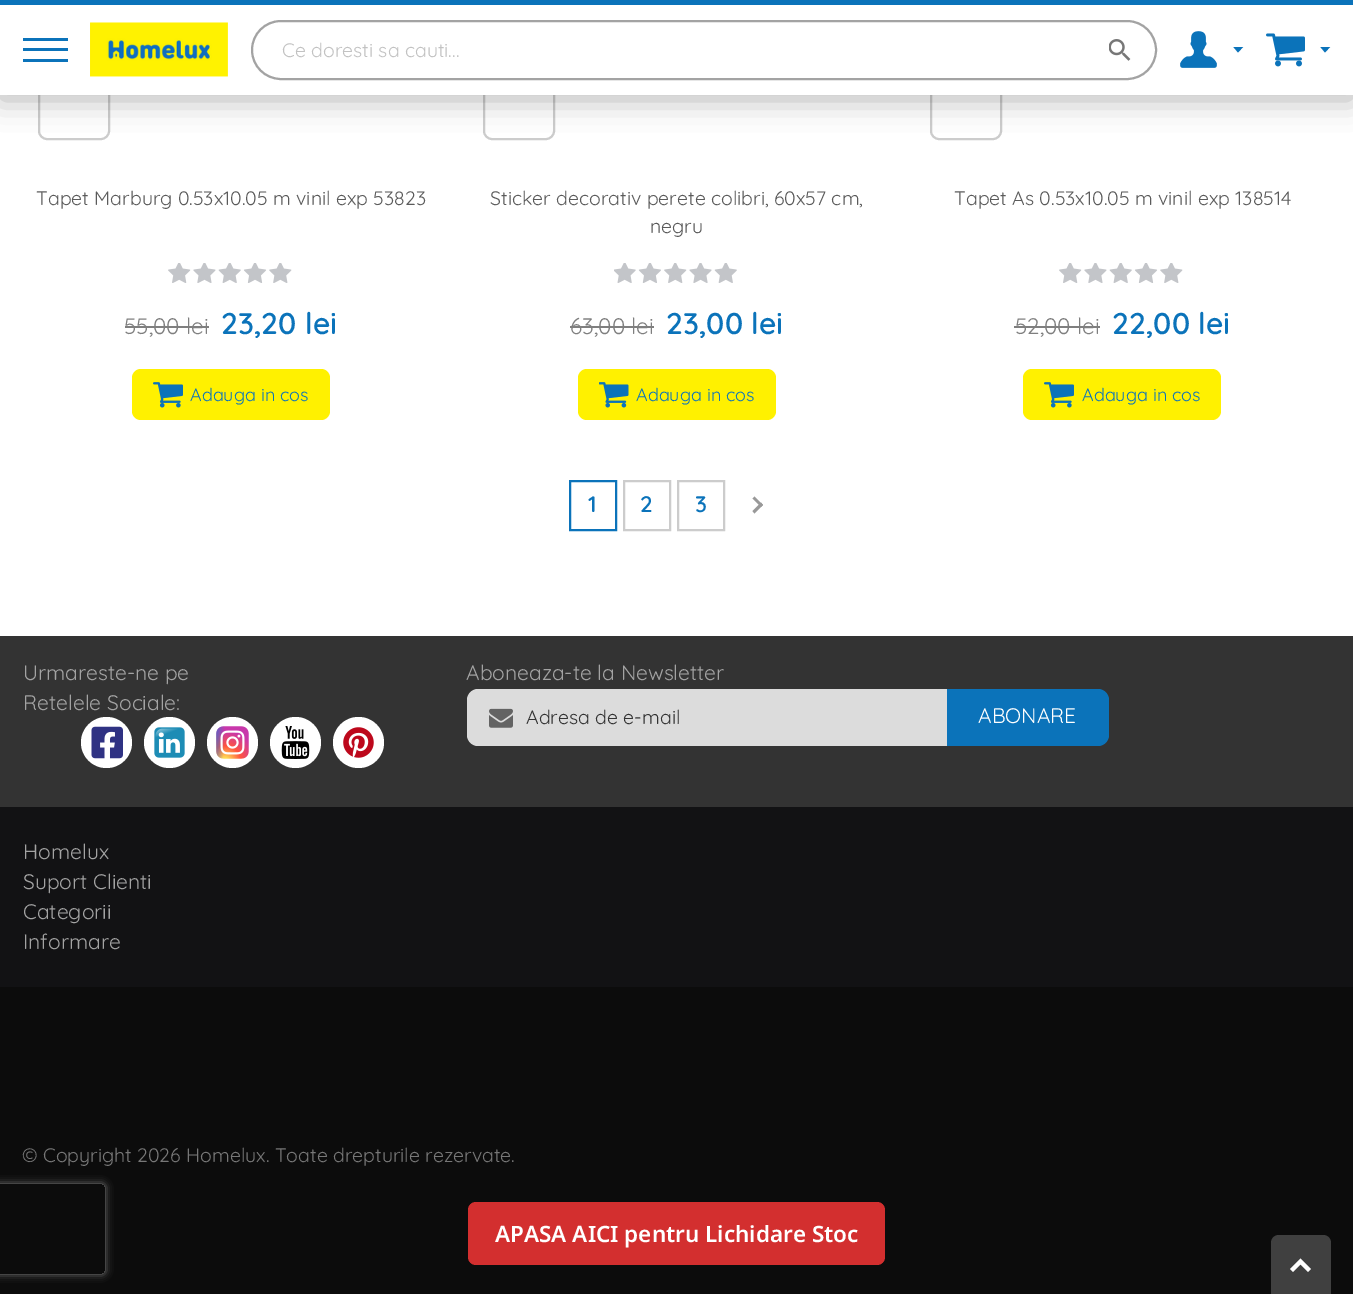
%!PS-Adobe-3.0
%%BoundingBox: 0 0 1353 1294
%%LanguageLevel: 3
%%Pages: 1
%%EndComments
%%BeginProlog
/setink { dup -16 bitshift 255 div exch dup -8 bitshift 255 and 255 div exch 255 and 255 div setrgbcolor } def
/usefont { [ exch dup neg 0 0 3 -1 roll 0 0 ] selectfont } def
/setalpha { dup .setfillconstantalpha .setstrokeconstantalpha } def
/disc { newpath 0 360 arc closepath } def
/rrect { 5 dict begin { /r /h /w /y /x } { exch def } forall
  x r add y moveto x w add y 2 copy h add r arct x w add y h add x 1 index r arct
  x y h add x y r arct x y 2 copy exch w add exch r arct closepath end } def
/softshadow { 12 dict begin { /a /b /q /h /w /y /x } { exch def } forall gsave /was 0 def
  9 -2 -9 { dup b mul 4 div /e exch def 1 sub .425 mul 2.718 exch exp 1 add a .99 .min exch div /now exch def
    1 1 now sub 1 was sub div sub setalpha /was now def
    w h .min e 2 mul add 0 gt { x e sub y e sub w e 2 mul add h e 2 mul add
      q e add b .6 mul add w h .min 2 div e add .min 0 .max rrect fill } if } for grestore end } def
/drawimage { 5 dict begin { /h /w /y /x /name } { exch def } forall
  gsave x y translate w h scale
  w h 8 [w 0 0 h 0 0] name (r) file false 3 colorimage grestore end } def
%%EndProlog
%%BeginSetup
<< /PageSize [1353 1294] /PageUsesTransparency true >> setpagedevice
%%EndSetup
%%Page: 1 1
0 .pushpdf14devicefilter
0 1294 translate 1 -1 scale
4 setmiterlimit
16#FFFFFF setink
0 0 1353 1294 rectfill
16#CCCCCC setink
2 setlinewidth
39 69 70 70 8 rrect stroke
484 69 70 70 8 rrect stroke
931 69 70 70 8 rrect stroke
16#000000 setink
0 5 1353 94 0 15 0.31 softshadow
[
    [0 5 1353 90 16#FFFFFF]
    [0 0 1353 5 16#0B73BA]
    [23 38 45 3 16#0B73BA]
    [23 48 45 3 16#0B73BA]
    [23 59 45 3 16#0B73BA]
] { aload pop setink rectfill } forall
(img1.raw) 90 22 138 55 drawimage
16#A3A3A3 setink
252 21 904 58 29 rrect stroke
/Quicksand-Regular 19.5 usefont
16#C2C2C2 setink
282 57 moveto (Ce doresti sa cauti...) show
(img2.raw) 1109 39 22 22 drawimage
(img3.raw) 1180 31 37 37 drawimage
gsave
1233 47 11 6 rectclip
16#0B73BA setink
1238 52.5 moveto 1233 46.5 lineto 1243.5 46.5 lineto closepath fill
grestore
(img4.raw) 1266 33 39 34 drawimage
gsave
1320 47 11 6 rectclip
16#0B73BA setink
1325 52.5 moveto 1320 46.5 lineto 1330.5 46.5 lineto closepath fill
grestore
16#5B5B5B setink
36 205 moveto (Tapet Marburg 0.53x10.05 m vinil exp 53823) show
(img5.raw) 168 263 124 20 drawimage
/Quicksand-Regular 22.5 usefont
16#7F7F7F setink
124 334 moveto (55,00 lei) show
125 326 84 2 rectfill
/Quicksand-SemiBold 30 usefont
16#0B73BA setink
221 334 moveto (23,20 lei) show
16#FFF100 setink
132 369 198 51 9 rrect fill
(img6.raw) 153 382 30 26 drawimage
/Quicksand-Regular 18 usefont
16#0B73BA setink
190 401 moveto (Adauga in cos) show
/Quicksand-Regular 19.5 usefont
16#5B5B5B setink
490 205 moveto (Sticker decorativ perete colibri, 60x57 cm,) show
650 233 moveto (negru) show
(img7.raw) 614 263 123 20 drawimage
/Quicksand-Regular 22.5 usefont
16#7F7F7F setink
570 334 moveto (63,00 lei) show
570 326 84 2 rectfill
/Quicksand-SemiBold 30 usefont
16#0B73BA setink
666 334 moveto (23,00 lei) show
16#FFF100 setink
578 369 198 51 9 rrect fill
(img8.raw) 599 382 30 26 drawimage
/Quicksand-Regular 18 usefont
16#0B73BA setink
636 401 moveto (Adauga in cos) show
/Quicksand-Regular 19.5 usefont
16#5B5B5B setink
954 205 moveto (Tapet As 0.53x10.05 m vinil exp 138514) show
(img5.raw) 1059 263 124 20 drawimage
/Quicksand-Regular 22.5 usefont
16#7F7F7F setink
1015 334 moveto (52,00 lei) show
1014 326 86 2 rectfill
/Quicksand-SemiBold 30 usefont
16#0B73BA setink
1112 334 moveto (22,00 lei) show
16#FFF100 setink
1023 369 198 51 9 rrect fill
(img6.raw) 1044 382 30 26 drawimage
/Quicksand-Regular 18 usefont
16#0B73BA setink
1082 401 moveto (Adauga in cos) show
570 481 46 49 rectstroke
/Quicksand-SemiBold 22.5 usefont
588 512 moveto (1) show
16#CCCCCC setink
624 481 46 49 rectstroke
16#0B73BA setink
640 512 moveto (2) show
16#CCCCCC setink
678 481 46 49 rectstroke
16#0B73BA setink
695 512 moveto (3) show
16#999999 setink
752.5 498.5 moveto 754.5 496.5 lineto 763 505 lineto 761 507 lineto closepath fill
752.5 511 moveto 761 502.5 lineto 763 505 lineto 754.5 513.5 lineto closepath fill
16#121214 setink
0 807 1353 180 rectfill
16#333333 setink
0 636 1353 171 rectfill
/Quicksand-Regular 21 usefont
16#A3A3A3 setink
23 680 moveto (Urmareste-ne pe) show
23 710 moveto (Retelele Sociale:) show
16#FFFFFF setink
106.5 742.5 25.5 disc fill
(img9.raw) 91 726 32 33 drawimage
169.5 742.5 25.5 disc fill
(img10.raw) 154 727 31 31 drawimage
232.5 742.5 25.5 disc fill
(img11.raw) 216 726 33 33 drawimage
295.5 742.5 25.5 disc fill
(img12.raw) 281 726 29 33 drawimage
358.5 742.5 25.5 disc fill
(img13.raw) 343 727 31 31 drawimage
16#A3A3A3 setink
466 680 moveto (Aboneaza-te la Newsletter) show
16#0B73BA setink
945 689 moveto 1098 689 lineto 1104 689 1109 694 1109 700 curveto 1109 735 lineto 1109 741 1104 746 1098 746 curveto 945 746 lineto closepath fill
16#DCDCDC setink
478 689 moveto 947 689 lineto 947 746 lineto 478 746 lineto 472 746 467 741 467 735 curveto 467 700 lineto 467 694 472 689 478 689 curveto closepath fill
(img14.raw) 489 708 24 20 drawimage
/Quicksand-Regular 19.5 usefont
16#333333 setink
526 724 moveto (Adresa de e-mail) show
/Quicksand-Regular 21 usefont
16#FFFFFF setink
978 723 moveto (ABONARE) show
16#0C0C0C setink
0 987 1353 307 rectfill
gsave
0 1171 moveto 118 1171 lineto 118 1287 lineto 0 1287 lineto closepath -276 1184 moveto 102 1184 lineto 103.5 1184 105 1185.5 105 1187 curveto 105 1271 lineto 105 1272.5 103.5 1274 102 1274 curveto -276 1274 lineto -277.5 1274 -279 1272.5 -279 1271 curveto -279 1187 lineto -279 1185.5 -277.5 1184 -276 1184 curveto closepath eoclip newpath
16#808080 setink
-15 1184 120 90 3 4 1 softshadow
grestore
16#A3A3A3 setink
[
    [(Homelux) 23 859]
    [(Suport Clienti) 23 889]
    [(Categorii) 23 919]
    [(Informare) 23 949]
] { aload pop moveto show } forall
/Quicksand-Regular 19.5 usefont
16#777777 setink
22 1162 moveto (© Copyright 2026 Homelux. Toate drepturile rezervate.) show
16#D32F2F setink
468 1202 417 63 8 rrect fill
/NotoSans-SemiBold 22.5 usefont
16#FFFFFF setink
495 1242 moveto (APASA AICI pentru Lichidare Stoc) show
16#404040 setink
1279 1235 moveto 1323 1235 lineto 1327.5 1235 1331 1238.5 1331 1243 curveto 1331 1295 lineto 1271 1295 lineto 1271 1243 lineto 1271 1238.5 1274.5 1235 1279 1235 curveto closepath fill
16#FFFFFF setink
1290 1269 moveto 1300.5 1258.5 lineto 1311 1269 lineto 1308 1272 lineto 1300.5 1264.5 lineto 1293 1272 lineto closepath fill
.poppdf14devicefilter showpage
%%EOF
